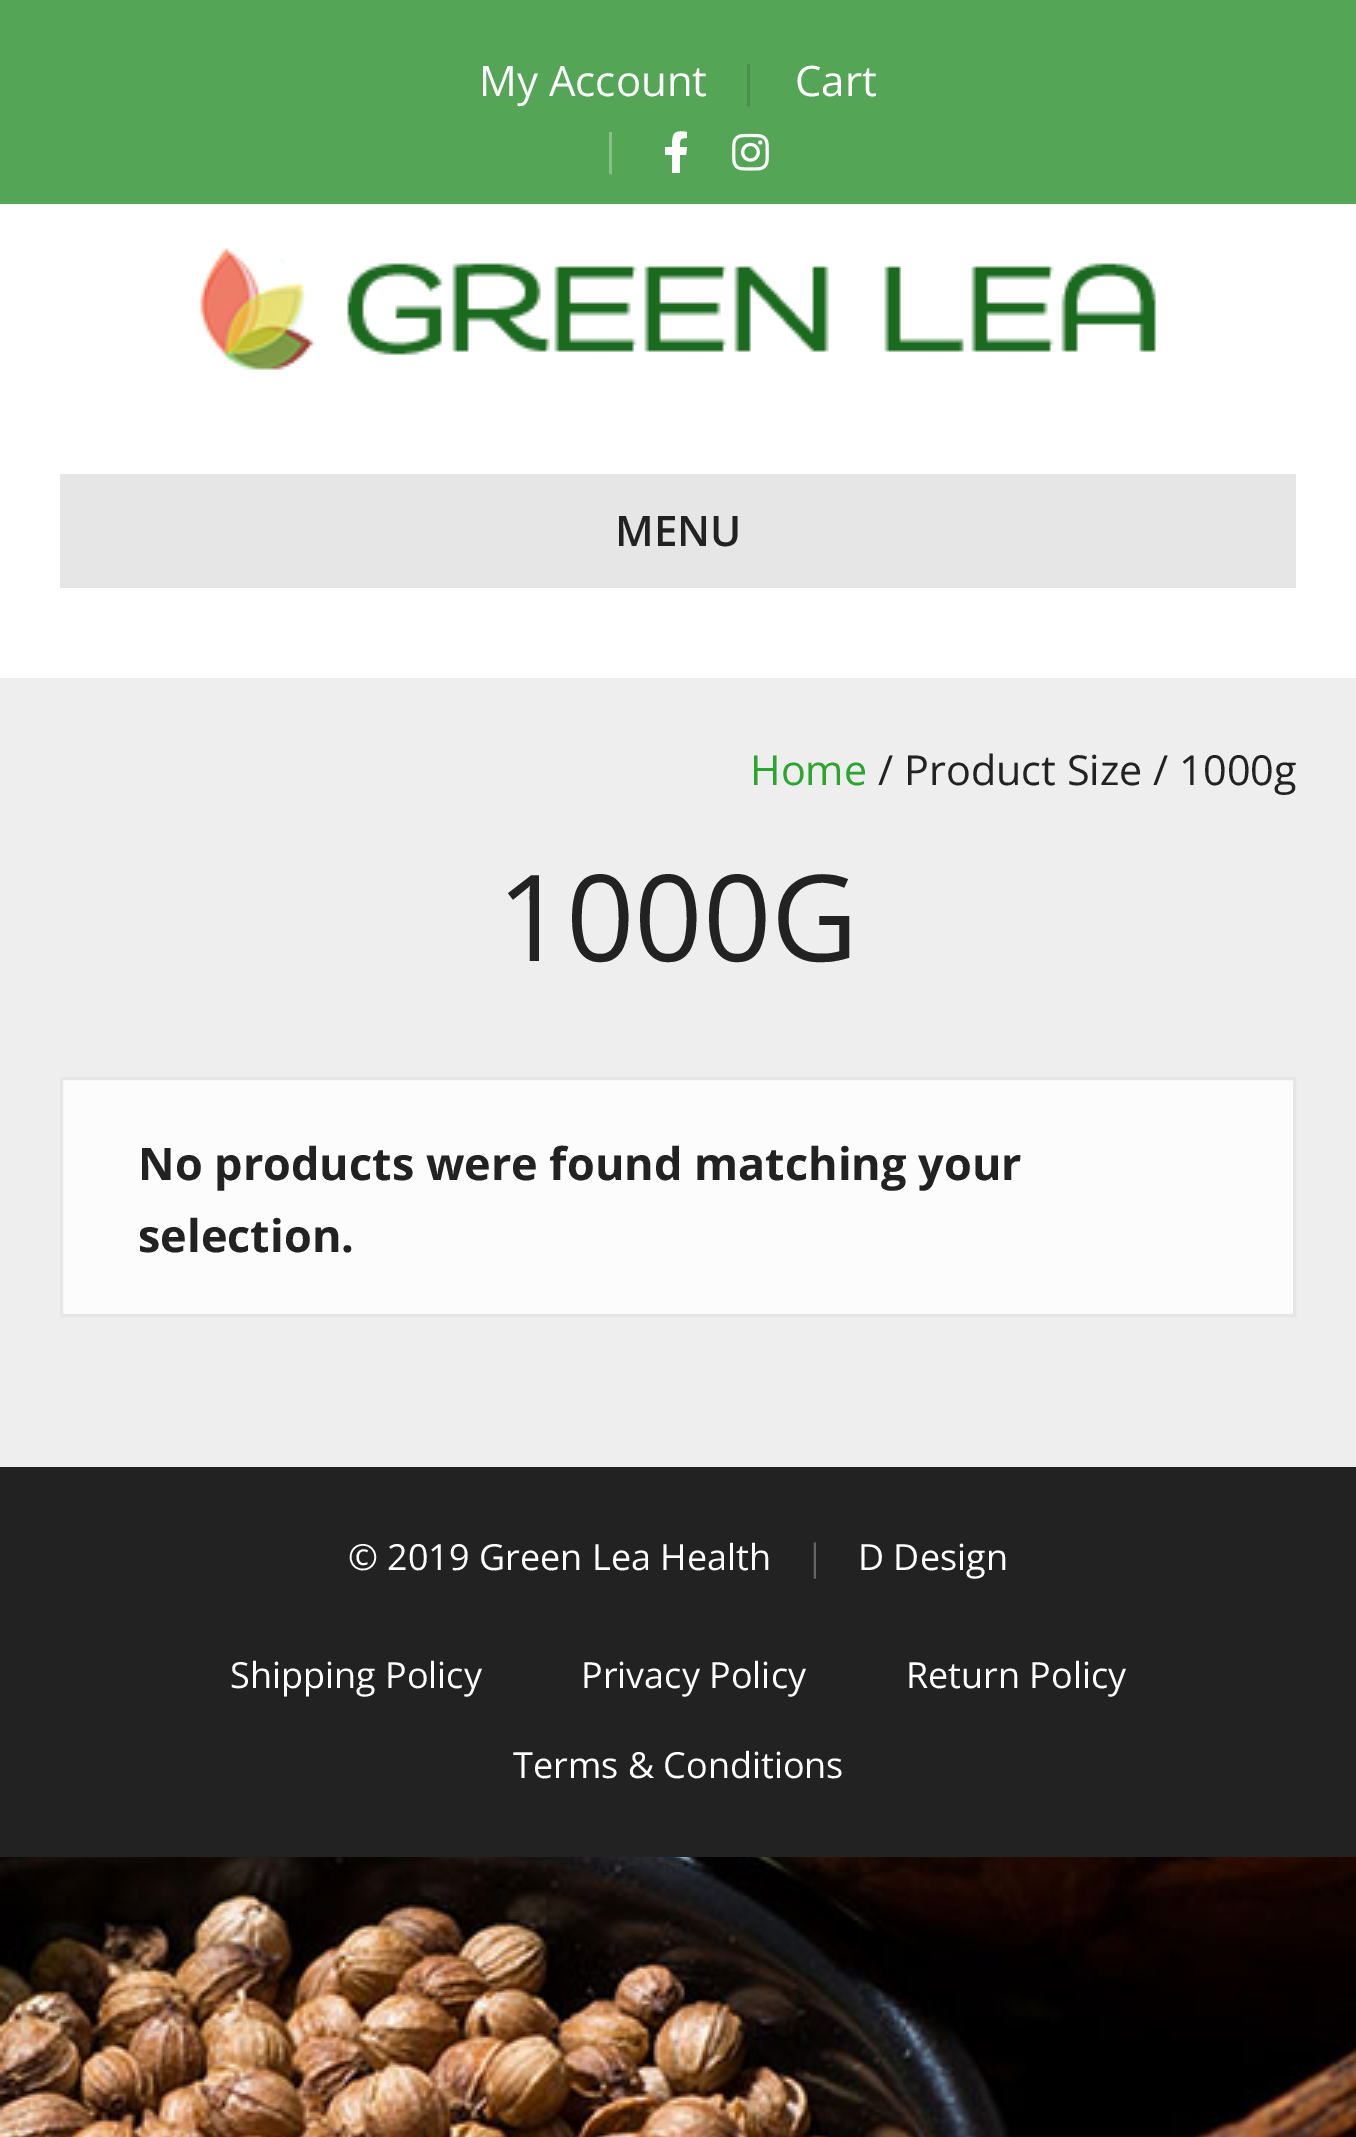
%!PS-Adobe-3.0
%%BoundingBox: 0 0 1356 2137
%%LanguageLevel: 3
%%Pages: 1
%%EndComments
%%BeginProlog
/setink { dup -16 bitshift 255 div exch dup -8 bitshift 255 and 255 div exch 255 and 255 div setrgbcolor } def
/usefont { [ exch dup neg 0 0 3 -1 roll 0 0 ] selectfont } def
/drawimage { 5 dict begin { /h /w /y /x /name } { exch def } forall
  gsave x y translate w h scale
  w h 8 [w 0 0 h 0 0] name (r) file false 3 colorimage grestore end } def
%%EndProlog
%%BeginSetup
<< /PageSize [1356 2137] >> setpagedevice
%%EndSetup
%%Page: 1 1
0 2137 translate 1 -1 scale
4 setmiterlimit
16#FFFFFF setink
0 0 1356 2137 rectfill
(img1.raw) 0 1857 1356 280 drawimage
16#54A656 setink
0 0 1356 204 rectfill
/OpenSans-Regular 42 usefont
16#FFFFFF setink
479 96 moveto (My Account) show
16#49904B setink
737 96 moveto (|) show
16#FFFFFF setink
795 96 moveto (Cart) show
16#87C189 setink
599 164 moveto (|) show
16#FFFFFF setink
686 155 moveto 680 155 lineto 680 173 lineto 672 173 lineto 672 155 lineto 665 155 lineto 665 147 lineto 672 147 lineto 672 133 674 130 687 132 curveto 687 138 lineto 679 138 680 140 680 147 curveto 687 147 lineto closepath fill
(img2.raw) 732 133 37 38 drawimage
(img3.raw) 200 248 956 122 drawimage
16#E6E6E6 setink
60 474 1236 114 rectfill
/OpenSans-SemiBold 42 usefont
16#222222 setink
615 546 moveto (MENU) show
16#EEEEEE setink
0 678 1356 789 rectfill
/OpenSans-Regular 41.4 usefont
16#2BA52D setink
750 785 moveto (Home) show
16#222222 setink
878 785 moveto (/ Product Size / 1000g) show
/OpenSans-Regular 120 usefont
497 961 moveto (1000G) show
16#FCFCFC setink
61.5 1078.5 moveto 1294.5 1078.5 lineto 1294.5 1315.5 lineto 61.5 1315.5 lineto closepath gsave fill grestore
16#E6E6E6 setink
3 setlinewidth
stroke
/OpenSans-Bold 45 usefont
16#222222 setink
138 1180 moveto (No products were found matching your) show
138 1252 moveto (selection.) show
0 1467 1356 390 rectfill
/OpenSans-Regular 36 usefont
16#FFFFFF setink
348 1570 moveto (© 2019 Green Lea Health) show
16#646464 setink
805 1570 moveto (|) show
16#FFFFFF setink
[
    [(D Design) 858 1570]
    [(Shipping Policy) 230 1688]
    [(Privacy Policy) 581 1688]
    [(Return Policy) 906 1688]
    [(Terms & Conditions) 513 1778]
] { aload pop moveto show } forall
showpage
%%EOF
